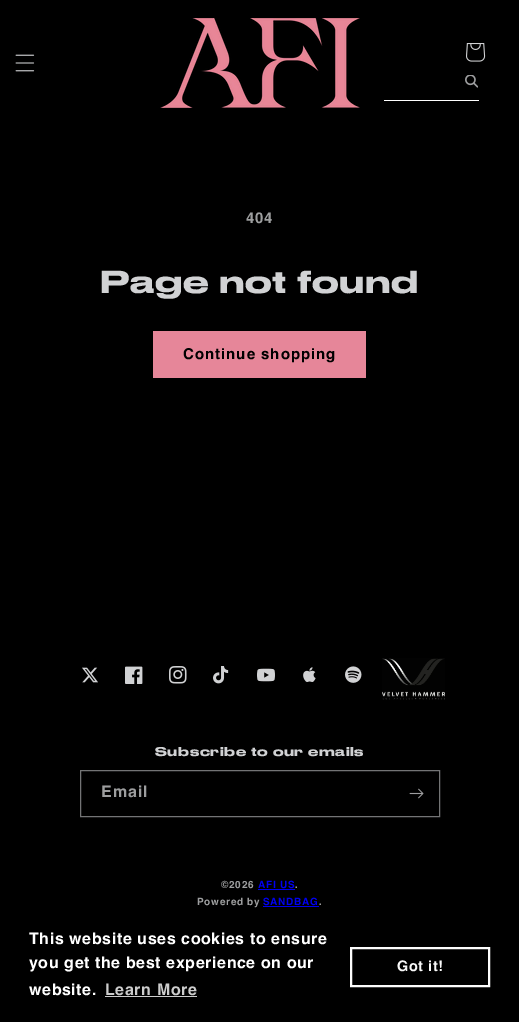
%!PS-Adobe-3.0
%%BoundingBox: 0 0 519 1022
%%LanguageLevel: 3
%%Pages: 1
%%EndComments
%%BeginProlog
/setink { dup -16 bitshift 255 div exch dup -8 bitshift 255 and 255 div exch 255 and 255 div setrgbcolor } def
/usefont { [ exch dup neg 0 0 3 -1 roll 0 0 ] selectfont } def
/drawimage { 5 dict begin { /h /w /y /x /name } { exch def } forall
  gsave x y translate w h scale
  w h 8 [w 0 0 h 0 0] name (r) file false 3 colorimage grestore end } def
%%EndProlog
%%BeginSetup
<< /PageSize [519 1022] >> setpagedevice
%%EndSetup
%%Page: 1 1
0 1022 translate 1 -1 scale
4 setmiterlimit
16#000000 setink
0 0 519 1022 rectfill
(img1.raw) 15 54 20 18 drawimage
(img2.raw) 160 18 200 90 drawimage
(img3.raw) 466 43 20 19 drawimage
16#FFFFFF setink
384 100 95 1 rectfill
(img4.raw) 465 75 13 13 drawimage
/Helvetica-Bold 15 usefont
16#9D9E9F setink
246 223 moveto 0.6 0 (404) ashow
/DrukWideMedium-Medium 30 usefont
16#D1D2D4 setink
100 293 moveto 0.6 0 (Page not found) ashow
16#E68699 setink
153 331 213 47 rectfill
/Helvetica-Bold 15 usefont
16#000000 setink
183 359 moveto 1 0 (Continue shopping) ashow
(img5.raw) 82 667 16 16 drawimage
(img6.raw) 125 666 18 18 drawimage
(img7.raw) 169 666 18 18 drawimage
(img8.raw) 213 666 16 18 drawimage
(img9.raw) 257 668 18 14 drawimage
(img10.raw) 303 667 13 15 drawimage
(img11.raw) 345 666 17 17 drawimage
(img12.raw) 382 658 63 42 drawimage
/DrukWideMedium-Medium 12 usefont
16#D1D2D4 setink
155 756 moveto 0.6 0 (Subscribe to our emails) ashow
16#737475 setink
80.5 770.5 359 46 rectstroke
/Helvetica-Bold 16 usefont
16#9D9E9F setink
101 797 moveto 1 0 (Email) ashow
(img13.raw) 409 788 15 11 drawimage
/Helvetica-Bold 10 usefont
221 888 moveto 0.75 0 (©2026) ashow
16#0000EE setink
258 888 moveto 0.75 0 (AFI US) ashow
258 889 37 1 rectfill
16#9D9E9F setink
295 888 moveto 0.75 0 (.) ashow
197 905 moveto 0.75 0 (Powered by) ashow
16#0000EE setink
263 905 moveto 0.75 0 (SANDBAG) ashow
263 906 56 1 rectfill
16#9D9E9F setink
319 905 moveto 0.75 0 (.) ashow
/Helvetica-Bold 16 usefont
16#FFFFFF setink
29 944 moveto 0.6 0 (This website uses cookies to ensure) ashow
29 968 moveto 0.6 0 (you get the best experience on our) ashow
29 995 moveto 0.6 0 (website.) ashow
16#CCCCCC setink
105 995 moveto 0.6 0 (Learn More) ashow
105 996 92 1 rectfill
16#FDFDFD setink
2 setlinewidth
351 948 138 38 rectstroke
/Helvetica-Bold 14.5 usefont
16#F9F9F9 setink
397 971 moveto 0.6 0 (Got it!) ashow
showpage
%%EOF
